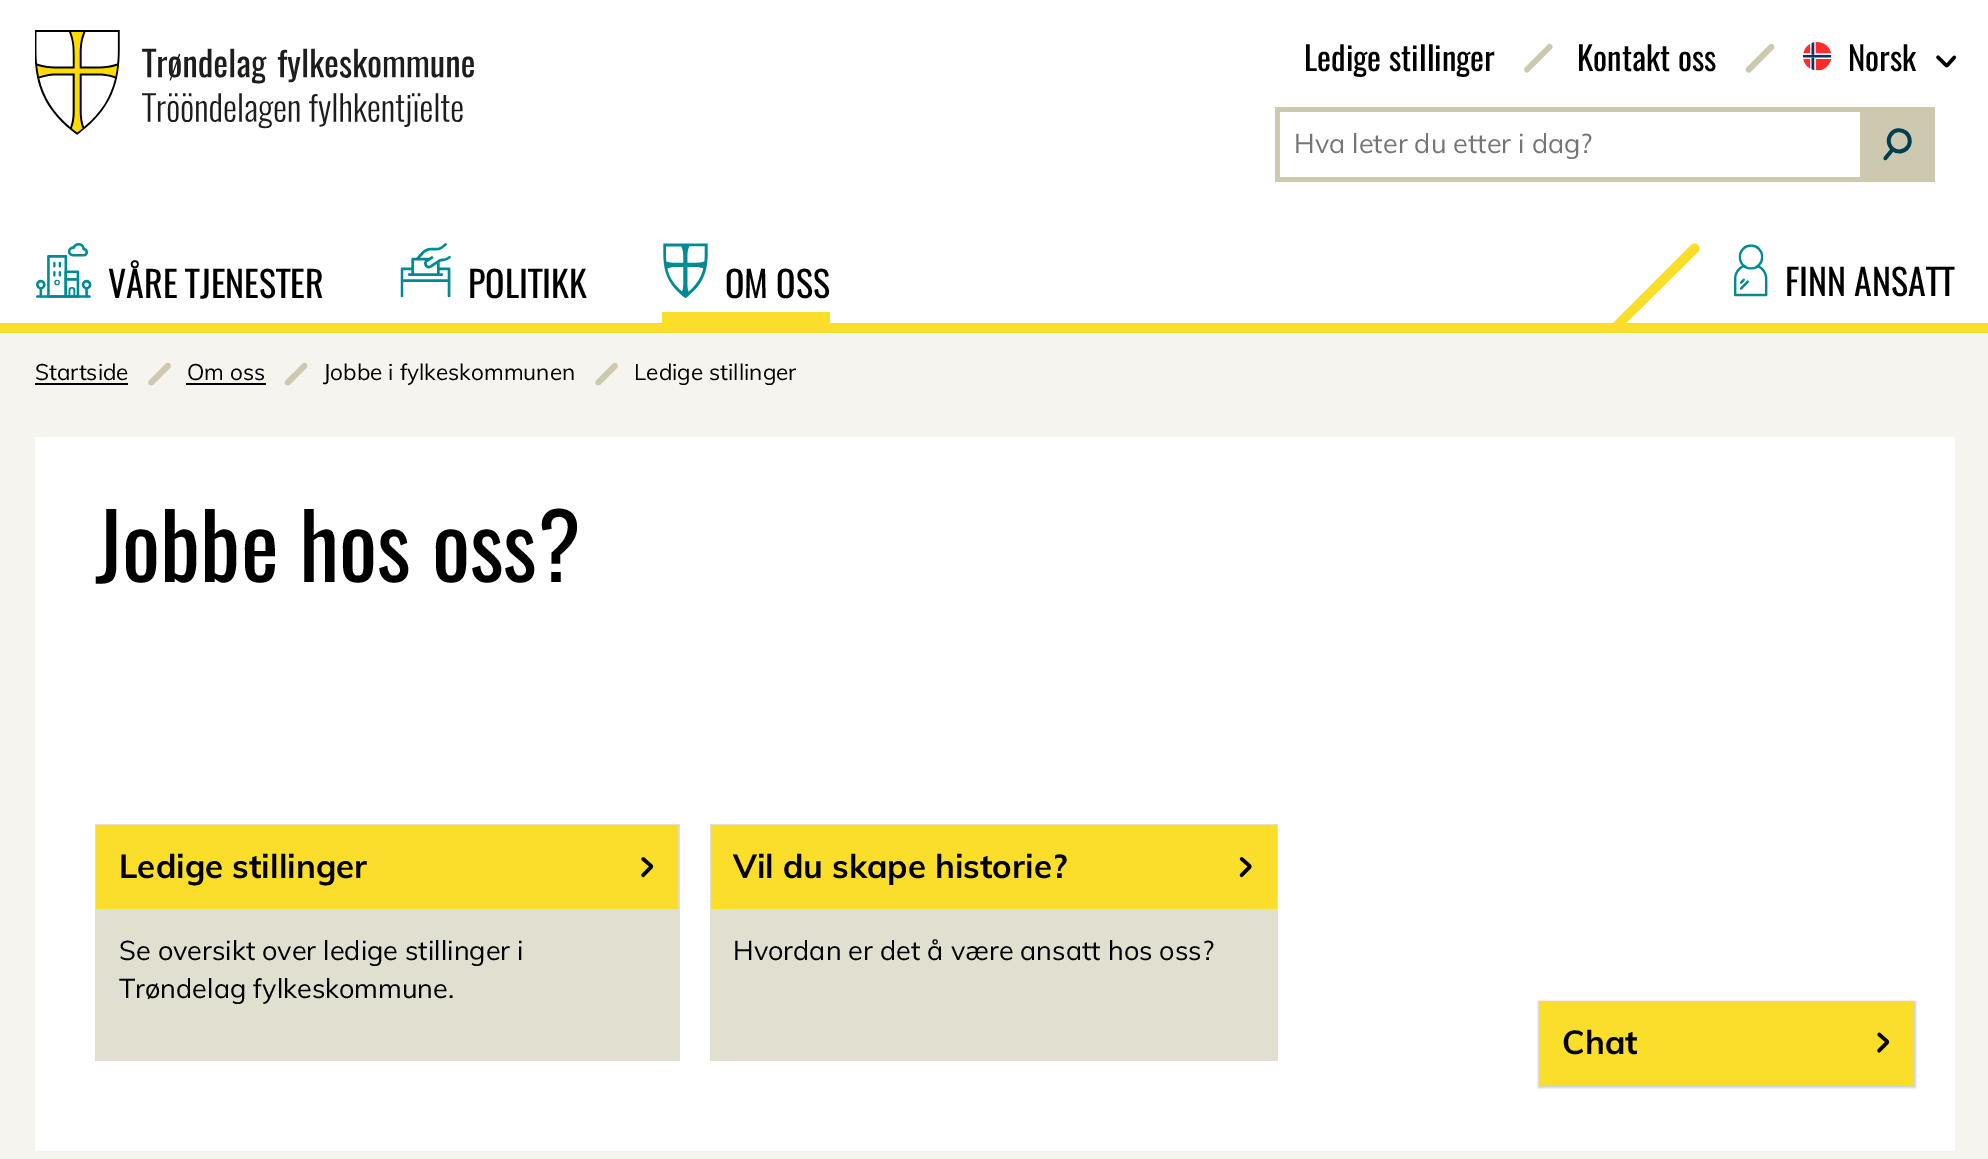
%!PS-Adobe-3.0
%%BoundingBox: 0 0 1988 1159
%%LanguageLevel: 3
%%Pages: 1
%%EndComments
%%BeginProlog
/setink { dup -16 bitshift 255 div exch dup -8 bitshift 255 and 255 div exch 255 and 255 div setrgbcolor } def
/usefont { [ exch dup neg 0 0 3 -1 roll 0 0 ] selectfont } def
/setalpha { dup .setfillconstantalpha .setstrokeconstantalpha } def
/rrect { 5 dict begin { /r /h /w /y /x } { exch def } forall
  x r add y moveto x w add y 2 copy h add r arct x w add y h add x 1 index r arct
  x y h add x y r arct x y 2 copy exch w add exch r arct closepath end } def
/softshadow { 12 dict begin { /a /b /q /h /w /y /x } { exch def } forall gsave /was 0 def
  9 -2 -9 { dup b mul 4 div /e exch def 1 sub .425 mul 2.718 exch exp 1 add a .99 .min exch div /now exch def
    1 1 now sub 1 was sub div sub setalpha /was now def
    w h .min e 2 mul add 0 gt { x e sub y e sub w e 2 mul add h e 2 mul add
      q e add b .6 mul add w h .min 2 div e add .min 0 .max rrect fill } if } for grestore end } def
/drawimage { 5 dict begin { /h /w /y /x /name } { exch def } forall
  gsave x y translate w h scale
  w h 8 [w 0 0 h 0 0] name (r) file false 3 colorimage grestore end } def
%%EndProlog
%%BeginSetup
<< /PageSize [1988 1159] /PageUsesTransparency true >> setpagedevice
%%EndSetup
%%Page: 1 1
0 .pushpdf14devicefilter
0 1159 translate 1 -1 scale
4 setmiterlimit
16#F5F4EF setink
0 0 1988 1159 rectfill
16#FFFFFF setink
0 0 1988 323 rectfill
16#FADE29 setink
0 323 1988 10 rectfill
(img1.raw) 35 30 439 105 drawimage
/Oswald-Regular 33 usefont
16#000000 setink
1304 71 moveto (Ledige stillinger) show
16#CDC9AF setink
1551.5 45 moveto 1553 46 1553 48 1551.5 49 curveto 1529 71.5 lineto 1528 73 1526 73 1525 71.5 curveto 1524 70.5 1524 68.5 1525 67.5 curveto 1547.5 45 lineto 1548.5 43.5 1550.5 43.5 1551.5 45 curveto closepath fill
16#000000 setink
1577 71 moveto (Kontakt oss) show
16#CDC9AF setink
1773.5 45 moveto 1774.5 46 1774.5 48 1773.5 49 curveto 1751 71.5 lineto 1749.5 73 1748 73 1746.5 71.5 curveto 1745.5 70.5 1745.5 68.5 1746.5 67.5 curveto 1769 45 lineto 1770.5 43.5 1772 43.5 1773.5 45 curveto closepath fill
(img2.raw) 1803 42 29 29 drawimage
16#000000 setink
1848 71 moveto (Norsk) show
(img3.raw) 1936 55 21 13 drawimage
[
    [1275 107 585 5 16#CDC9AF]
    [1275 177 585 5 16#CDC9AF]
    [1275 107 5 75 16#CDC9AF]
] { aload pop setink rectfill } forall
/Muli-Regular 27 usefont
16#757575 setink
1294 153 moveto (Hva leter du etter i dag?) show
16#CDC9AF setink
1860 107 75 75 rectfill
(img4.raw) 1883 128 29 33 drawimage
(img5.raw) 36 243 56 55 drawimage
/Oswald-Regular 36 usefont
16#000000 setink
108 298 moveto (VÅRE TJENESTER) show
(img6.raw) 400 243 51 55 drawimage
468 298 moveto (POLITIKK) show
(img7.raw) 663 243 45 55 drawimage
725 298 moveto (OM OSS) show
16#FADE29 setink
662 312 168 11 rectfill
1698 245 moveto 1700 247 1700 250 1698 252 curveto 1619 330 lineto 1618 332 1615 332 1613 330 curveto 1611 328 1611 325 1613 323 curveto 1691 245 lineto 1693 243 1696 243 1698 245 curveto closepath fill
(img8.raw) 1734 244 34 53 drawimage
16#000000 setink
1785 296 moveto (FINN ANSATT) show
/Muli-Regular 22.5 usefont
35 380 moveto (Startside) show
35 383 93 2 rectfill
16#CDC9AF setink
170 364 moveto 171 365 171 367 170 368 curveto 153.5 384.5 lineto 152 385.5 150.5 385.5 149 384.5 curveto 148 383.5 148 381.5 149 380.5 curveto 165.5 364 lineto 167 362.5 169 362.5 170 364 curveto closepath fill
16#000000 setink
187 380 moveto (Om oss) show
186 383 80 2 rectfill
16#CDC9AF setink
306.5 364 moveto 307.5 365 307.5 367 306.5 368 curveto 290 384.5 lineto 289 385.5 287 385.5 285.5 384.5 curveto 284.5 383.5 284.5 381.5 285.5 380.5 curveto 302.5 364 lineto 303.5 362.5 305.5 362.5 306.5 364 curveto closepath fill
16#000000 setink
323 380 moveto (Jobbe i fylkeskommunen) show
16#CDC9AF setink
617 364 moveto 618 365 618 367 617 368 curveto 600.5 384.5 lineto 599 385.5 597.5 385.5 596 384.5 curveto 595 383.5 595 381.5 596 380.5 curveto 612.5 364 lineto 614 362.5 616 362.5 617 364 curveto closepath fill
16#000000 setink
634 380 moveto (Ledige stillinger) show
16#FFFFFF setink
35 437 1920 714 rectfill
/Oswald-Regular 90 usefont
16#000000 setink
95 582 moveto (Jobbe hos oss?) show
16#E1DFCF setink
95 824 585 237 rectfill
16#FADE29 setink
96 825 582 84 rectfill
/Muli-Bold 33 usefont
16#000000 setink
119 878 moveto (Ledige stillinger) show
(img9.raw) 641 857 13 21 drawimage
/Muli-Regular 27 usefont
119 960 moveto (Se oversikt over ledige stillinger i) show
119 998 moveto (Trøndelag fylkeskommune.) show
16#E1DFCF setink
710 824 568 237 rectfill
16#FADE29 setink
711 825 566 84 rectfill
/Muli-Bold 33 usefont
16#000000 setink
733 878 moveto (Vil du skape historie?) show
(img10.raw) 1239 857 13 21 drawimage
/Muli-Regular 27 usefont
733 960 moveto (Hvordan er det å være ansatt hos oss?) show
1538 1001 378 87 0 1 0.18 softshadow
16#FADE29 setink
1539 1001 375 84 rectfill
/Muli-Bold 33 usefont
16#000000 setink
1562 1054 moveto (Chat) show
(img11.raw) 1877 1032 13 21 drawimage
.poppdf14devicefilter showpage
%%EOF
